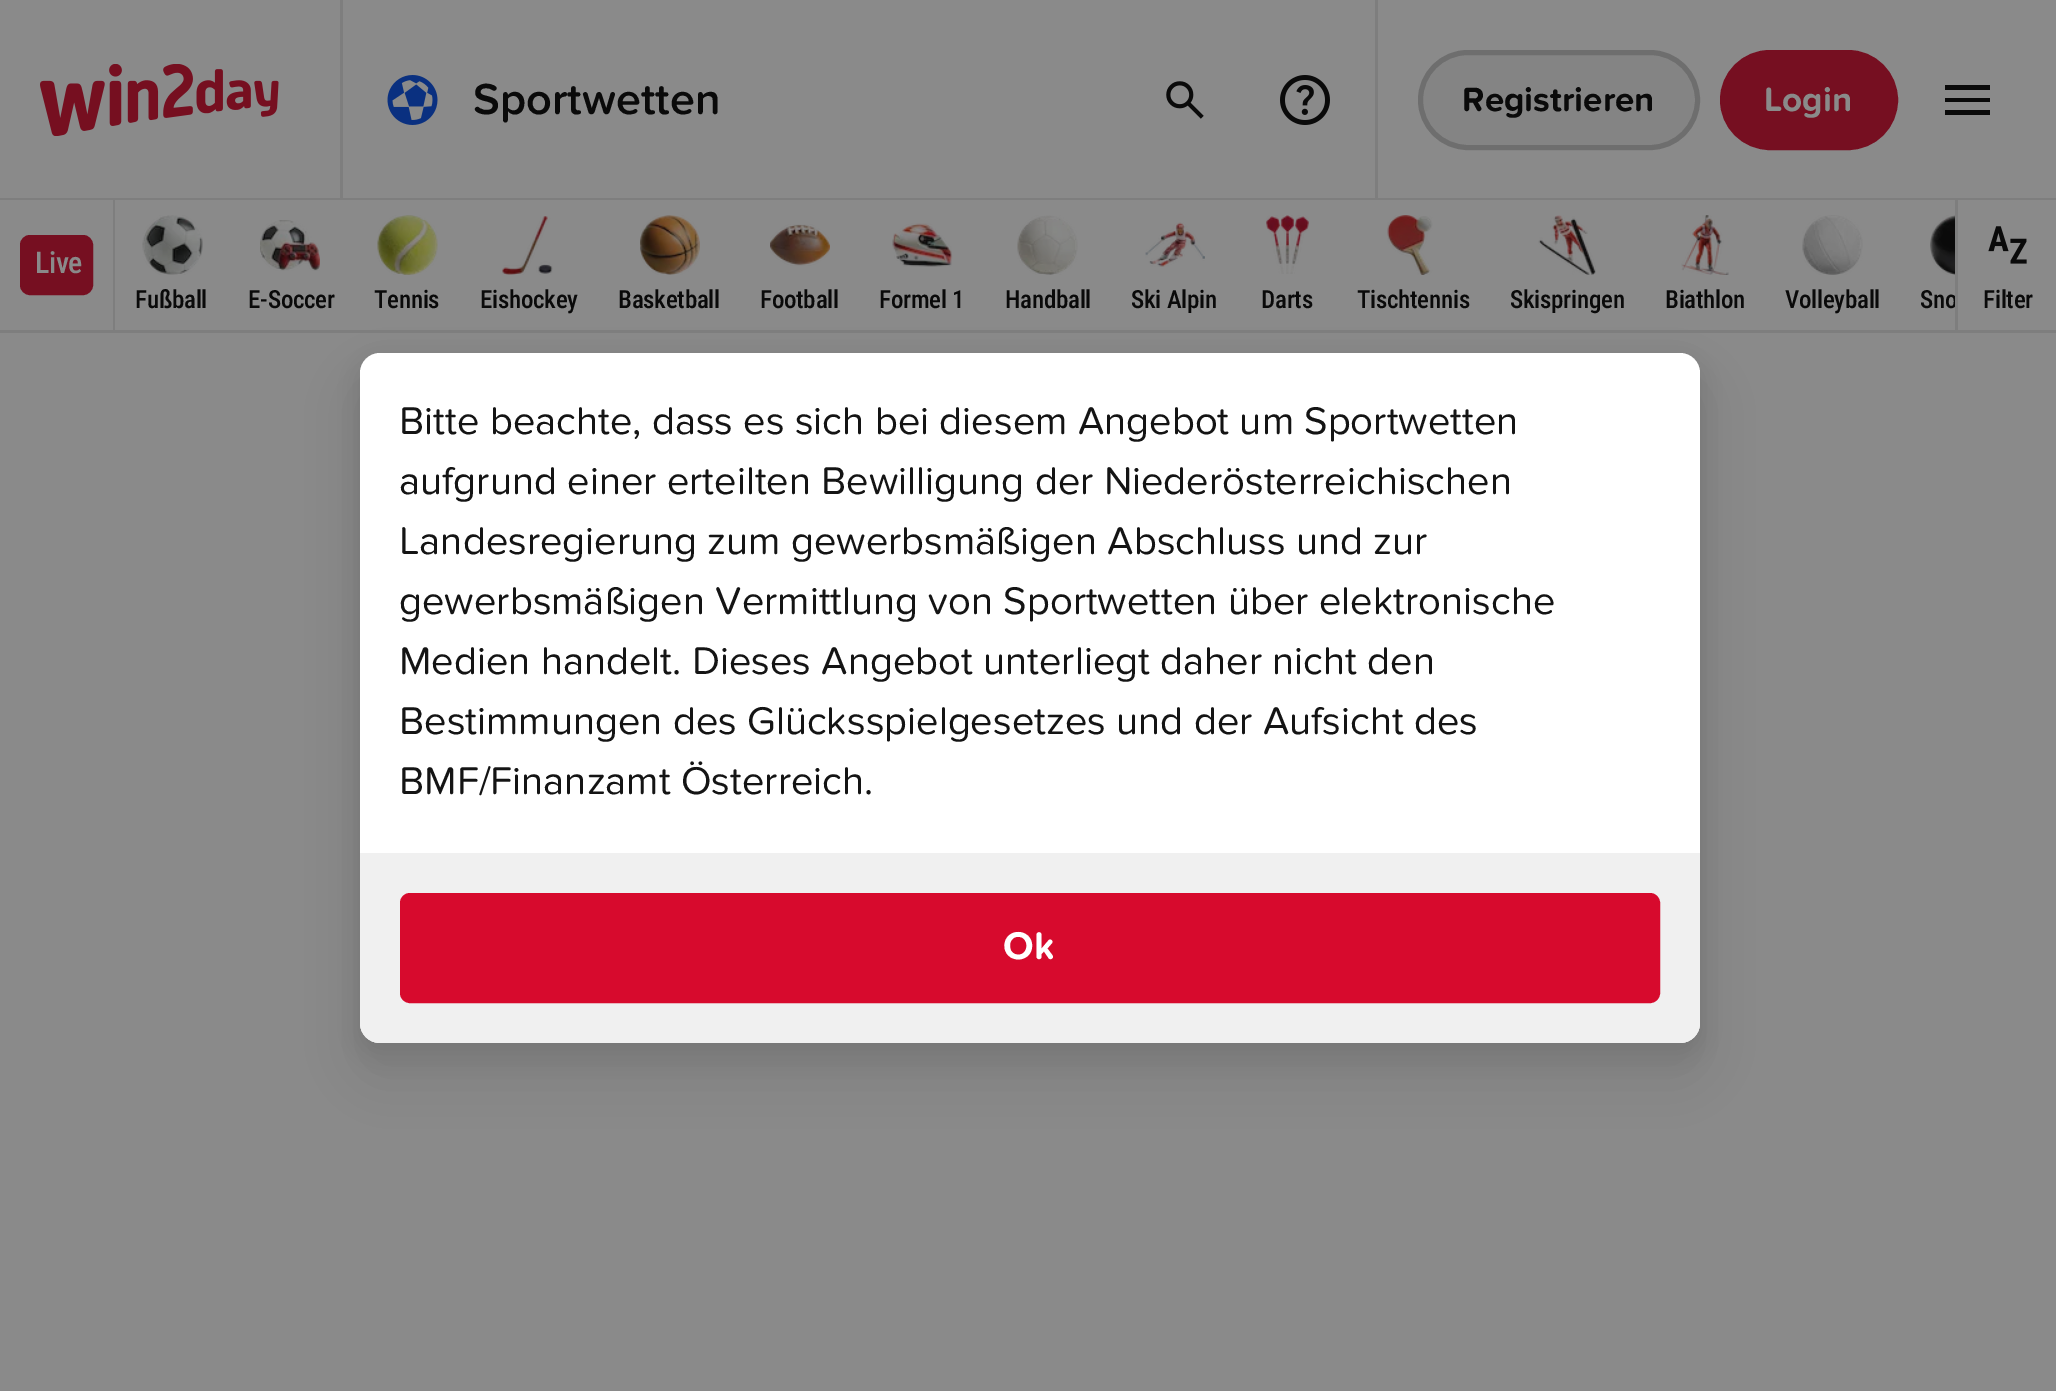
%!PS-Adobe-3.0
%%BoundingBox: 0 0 2056 1391
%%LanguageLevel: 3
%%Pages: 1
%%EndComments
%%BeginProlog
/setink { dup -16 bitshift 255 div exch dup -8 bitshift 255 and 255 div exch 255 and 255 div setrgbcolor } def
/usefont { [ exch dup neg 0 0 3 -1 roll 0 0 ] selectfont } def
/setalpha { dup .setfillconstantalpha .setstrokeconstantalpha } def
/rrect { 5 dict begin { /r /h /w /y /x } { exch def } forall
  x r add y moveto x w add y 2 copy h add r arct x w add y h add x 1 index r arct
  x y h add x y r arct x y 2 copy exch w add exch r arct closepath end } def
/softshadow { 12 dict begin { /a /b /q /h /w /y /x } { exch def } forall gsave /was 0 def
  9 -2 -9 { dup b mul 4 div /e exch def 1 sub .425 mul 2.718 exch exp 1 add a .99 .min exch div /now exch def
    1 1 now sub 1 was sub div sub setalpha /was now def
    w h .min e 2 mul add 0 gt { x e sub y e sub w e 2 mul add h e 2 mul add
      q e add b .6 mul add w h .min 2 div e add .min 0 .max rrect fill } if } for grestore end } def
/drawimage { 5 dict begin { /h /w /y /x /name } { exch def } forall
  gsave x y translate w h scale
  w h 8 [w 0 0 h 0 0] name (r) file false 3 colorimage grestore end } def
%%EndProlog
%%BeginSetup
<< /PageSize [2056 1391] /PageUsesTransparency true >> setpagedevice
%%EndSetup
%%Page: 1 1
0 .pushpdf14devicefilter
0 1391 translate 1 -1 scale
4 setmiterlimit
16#8A8A8A setink
0 0 2056 1391 rectfill
16#7E7E7E setink
0 198 2056 2 rectfill
340 0 3 198 rectfill
(img1.raw) 40 64 239 72 drawimage
(img2.raw) 387 75 51 50 drawimage
/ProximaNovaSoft-SemiBold 45 usefont
16#0A0A0A setink
473 114 moveto (Sportwetten) show
16#7E7E7E setink
1375 0 3 198 rectfill
(img3.raw) 1166 81 38 38 drawimage
(img4.raw) 1280 75 50 50 drawimage
16#848484 setink
1418 50 282 100 50 rrect fill
0.2 setalpha
16#141414 setink
5 setlinewidth
1420.5 52.5 277 95 47.5 rrect stroke
/ProximaNovaSoft-Bold 35 usefont
1 setalpha
16#0A0A0A setink
1462 111 moveto (Registrieren) show
16#760F21 setink
1722.5 52.5 173 95 47.5 rrect gsave fill grestore
stroke
16#8A8A8A setink
1764 111 moveto (Login) show
16#0A0A0A setink
1945 115 moveto 1945 110 lineto 1990 110 lineto 1990 115 lineto closepath 1945 102 moveto 1945 98 lineto 1990 98 lineto 1990 102 lineto closepath 1945 90 moveto 1945 85 lineto 1990 85 lineto 1990 90 lineto closepath fill
16#7E7E7E setink
113 200 2 130 rectfill
16#760F21 setink
21.5 236.5 70 57 8.5 rrect gsave fill grestore
3 setlinewidth
stroke
/RobotoCondensed-Medium 30 usefont
16#8A8A8A setink
35 273 moveto -0.5 0 (Live) ashow
(img5.raw) 142 215 61 60 drawimage
/RobotoCondensed-Medium 25 usefont
16#0A0A0A setink
135 308 moveto -0.25 0 (Fußball) ashow
(img6.raw) 260 220 60 51 drawimage
248 308 moveto -0.25 0 (E-Soccer) ashow
(img7.raw) 377 215 61 60 drawimage
374 308 moveto -0.25 0 (Tennis) ashow
(img8.raw) 502 216 51 59 drawimage
480 308 moveto -0.25 0 (Eishockey) ashow
(img9.raw) 640 215 60 60 drawimage
618 308 moveto -0.25 0 (Basketball) ashow
(img10.raw) 770 224 60 42 drawimage
760 308 moveto -0.25 0 (Football) ashow
(img11.raw) 892 223 61 44 drawimage
879 308 moveto -0.25 0 (Formel 1) ashow
(img12.raw) 1017 215 61 60 drawimage
1005 308 moveto -0.25 0 (Handball) ashow
(img13.raw) 1145 222 60 45 drawimage
1131 308 moveto -0.25 0 (Ski Alpin) ashow
(img14.raw) 1266 215 43 59 drawimage
1261 308 moveto -0.25 0 (Darts) ashow
(img15.raw) 1387 215 46 60 drawimage
1357 308 moveto -0.25 0 (Tischtennis) ashow
(img16.raw) 1538 215 58 60 drawimage
1510 308 moveto -0.25 0 (Skispringen) ashow
(img17.raw) 1681 215 48 60 drawimage
1665 308 moveto -0.25 0 (Biathlon) ashow
(img18.raw) 1802 215 61 60 drawimage
1785 308 moveto -0.25 0 (Volleyball) ashow
(img19.raw) 1930 215 25 60 drawimage
1920 308 moveto -0.25 0 (Sno) ashow
16#7E7E7E setink
1955 200 3 130 rectfill
(img20.raw) 1988 226 39 38 drawimage
16#0A0A0A setink
1983 308 moveto -0.25 0 (Filter) ashow
16#7E7E7E setink
0 330 2056 3 rectfill
16#000000 setink
360 383 1340 690 20 25 0.08 softshadow
360 363 1340 690 20 10 0.08 softshadow
16#FFFFFF setink
360 353 1340 690 20 rrect fill
/ProximaNovaSoft-Regular 40 usefont
16#141414 setink
[
    [(Bitte beachte, dass es sich bei diesem Angebot um Sportwetten) 399 434]
    [(aufgrund einer erteilten Bewilligung der Niederösterreichischen) 399 494]
    [(Landesregierung zum gewerbsmäßigen Abschluss und zur) 399 554]
    [(gewerbsmäßigen Vermittlung von Sportwetten über elektronische) 399 614]
    [(Medien handelt. Dieses Angebot unterliegt daher nicht den) 399 674]
    [(Bestimmungen des Glücksspielgesetzes und der Aufsicht des) 399 734]
    [(BMF/Finanzamt Österreich.) 399 794]
] { aload pop moveto show } forall
16#F0F0F0 setink
360 853 moveto 1700 853 lineto 1700 1023 lineto 1700 1034 1691 1043 1680 1043 curveto 380 1043 lineto 369 1043 360 1034 360 1023 curveto closepath fill
16#D70A2D setink
402.5 895.5 1255 105 7.5 rrect gsave fill grestore
5 setlinewidth
stroke
/ProximaNovaSoft-Bold 40 usefont
16#FFFFFF setink
1003 959 moveto (Ok) show
.poppdf14devicefilter showpage
%%EOF
